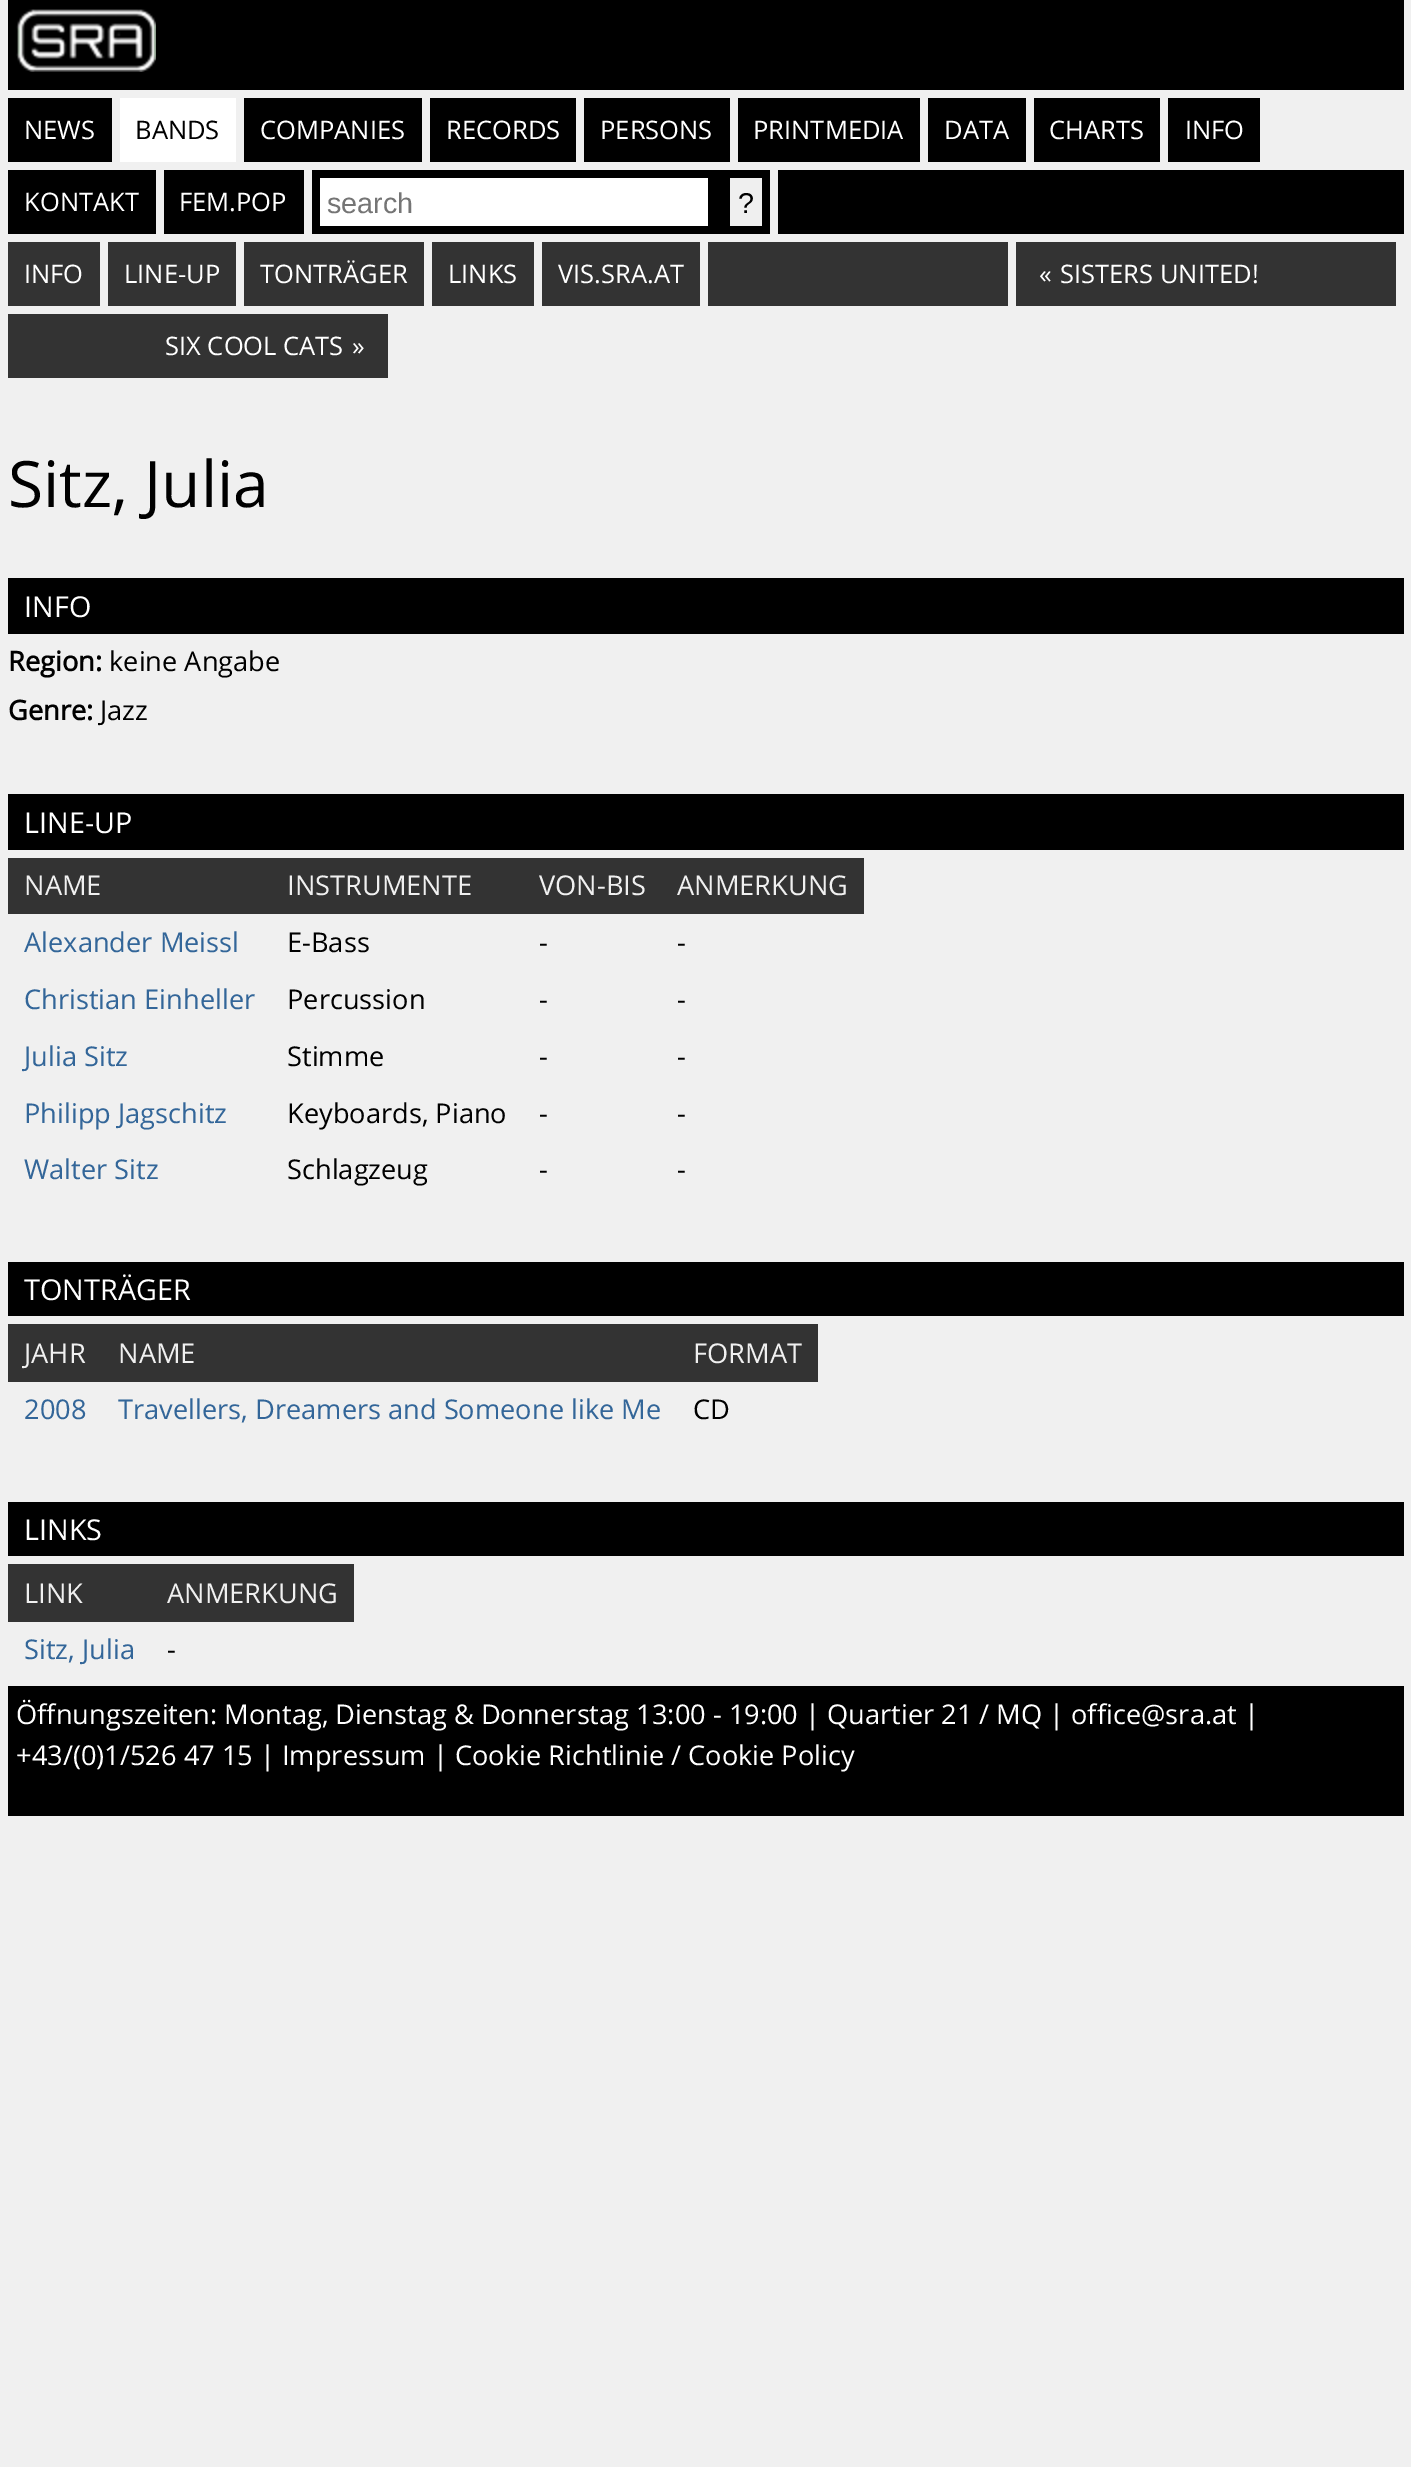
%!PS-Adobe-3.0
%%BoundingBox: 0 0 1411 2467
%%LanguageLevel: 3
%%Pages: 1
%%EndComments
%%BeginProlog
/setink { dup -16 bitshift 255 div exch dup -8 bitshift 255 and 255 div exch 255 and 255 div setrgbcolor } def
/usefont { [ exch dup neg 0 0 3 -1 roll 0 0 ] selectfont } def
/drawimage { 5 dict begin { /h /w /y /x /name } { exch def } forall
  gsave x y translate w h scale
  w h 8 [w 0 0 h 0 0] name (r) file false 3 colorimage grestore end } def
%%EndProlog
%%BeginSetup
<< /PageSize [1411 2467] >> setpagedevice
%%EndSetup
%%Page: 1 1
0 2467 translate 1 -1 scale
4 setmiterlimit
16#F0F0F0 setink
0 0 1411 2467 rectfill
16#000000 setink
8 0 1396 90 rectfill
(img1.raw) 16 9 140 63 drawimage
8 98 104 64 rectfill
/OpenSans-Regular 25.5 usefont
16#FFFFFF setink
24 139 moveto (NEWS) show
120 98 116 64 rectfill
16#000000 setink
135 139 moveto (BANDS) show
244 98 178 64 rectfill
16#FFFFFF setink
260 139 moveto (COMPANIES) show
16#000000 setink
430 98 146 64 rectfill
16#FFFFFF setink
446 139 moveto (RECORDS) show
16#000000 setink
584 98 146 64 rectfill
16#FFFFFF setink
600 139 moveto (PERSONS) show
16#000000 setink
738 98 182 64 rectfill
16#FFFFFF setink
753 139 moveto (PRINTMEDIA) show
16#000000 setink
928 98 98 64 rectfill
16#FFFFFF setink
944 139 moveto (DATA) show
16#000000 setink
1034 98 126 64 rectfill
16#FFFFFF setink
1049 139 moveto (CHARTS) show
16#000000 setink
1168 98 92 64 rectfill
16#FFFFFF setink
1185 139 moveto (INFO) show
16#000000 setink
8 170 148 64 rectfill
16#FFFFFF setink
24 211 moveto (KONTAKT) show
16#000000 setink
164 170 140 64 rectfill
16#FFFFFF setink
179 211 moveto (FEM.POP) show
16#000000 setink
312 170 458 64 rectfill
16#FFFFFF setink
320 178 388 48 rectfill
/LiberationSans-Regular 28.75 usefont
16#757575 setink
327 213 moveto (search) show
16#EFEFEF setink
730 178 32 48 rectfill
16#000000 setink
738 213 moveto (?) show
778 170 626 64 rectfill
16#333333 setink
8 242 92 64 rectfill
/OpenSans-Regular 25.5 usefont
16#FFFFFF setink
24 283 moveto (INFO) show
16#333333 setink
108 242 128 64 rectfill
16#FFFFFF setink
124 283 moveto (LINE-UP) show
16#333333 setink
244 242 180 64 rectfill
16#FFFFFF setink
260 283 moveto (TONTRÄGER) show
16#333333 setink
432 242 102 64 rectfill
16#FFFFFF setink
448 283 moveto (LINKS) show
16#333333 setink
542 242 158 64 rectfill
16#FFFFFF setink
558 283 moveto (VIS.SRA.AT) show
16#333333 setink
708 242 300 64 rectfill
1016 242 380 64 rectfill
16#FFFFFF setink
1039 283 moveto («) show
1060 283 moveto (SISTERS UNITED!) show
16#333333 setink
8 314 380 64 rectfill
16#FFFFFF setink
165 355 moveto (SIX COOL CATS) show
352 355 moveto (») show
/OpenSans-Regular 64 usefont
16#000000 setink
8 507 moveto (Sitz, Julia) show
8 578 1396 56 rectfill
/OpenSans-Regular 28.75 usefont
16#FFFFFF setink
24 617 moveto (INFO) show
/OpenSans-Bold 27.2 usefont
16#000000 setink
8 671 moveto (Region:) show
/OpenSans-Regular 27.2 usefont
109 671 moveto (keine Angabe) show
/OpenSans-Bold 27.2 usefont
8 720 moveto (Genre:) show
/OpenSans-Regular 27.2 usefont
100 720 moveto (Jazz) show
8 794 1396 56 rectfill
/OpenSans-Regular 28.75 usefont
16#FFFFFF setink
24 833 moveto (LINE-UP) show
16#333333 setink
8 858 856 56 rectfill
/OpenSans-Regular 27.2 usefont
16#F0F0F0 setink
[
    [(NAME) 24 895]
    [(INSTRUMENTE) 287 895]
    [(VON-BIS) 539 895]
    [(ANMERKUNG) 677 895]
] { aload pop moveto show } forall
16#336699 setink
24 952 moveto (Alexander Meissl) show
16#000000 setink
[
    [(E-Bass) 287 952]
    [(-) 539 952]
    [(-) 677 952]
] { aload pop moveto show } forall
16#336699 setink
24 1009 moveto (Christian Einheller) show
16#000000 setink
[
    [(Percussion) 287 1009]
    [(-) 539 1009]
    [(-) 677 1009]
] { aload pop moveto show } forall
16#336699 setink
24 1066 moveto (Julia Sitz) show
16#000000 setink
[
    [(Stimme) 287 1066]
    [(-) 539 1066]
    [(-) 677 1066]
] { aload pop moveto show } forall
16#336699 setink
24 1123 moveto (Philipp Jagschitz) show
16#000000 setink
[
    [(Keyboards, Piano) 287 1123]
    [(-) 539 1123]
    [(-) 677 1123]
] { aload pop moveto show } forall
16#336699 setink
24 1179 moveto (Walter Sitz) show
16#000000 setink
[
    [(Schlagzeug) 287 1179]
    [(-) 539 1179]
    [(-) 677 1179]
] { aload pop moveto show } forall
8 1262 1396 54 rectfill
/OpenSans-Regular 28.75 usefont
16#FFFFFF setink
24 1300 moveto (TONTRÄGER) show
16#333333 setink
8 1324 810 58 rectfill
/OpenSans-Regular 27.2 usefont
16#F0F0F0 setink
[
    [(JAHR) 24 1363]
    [(NAME) 118 1363]
    [(FORMAT) 693 1363]
] { aload pop moveto show } forall
16#336699 setink
24 1419 moveto (2008) show
118 1419 moveto (Travellers, Dreamers and Someone like Me) show
16#000000 setink
693 1419 moveto (CD) show
8 1502 1396 54 rectfill
/OpenSans-Regular 28.75 usefont
16#FFFFFF setink
24 1540 moveto (LINKS) show
16#333333 setink
8 1564 346 58 rectfill
/OpenSans-Regular 27.2 usefont
16#F0F0F0 setink
24 1603 moveto (LINK) show
167 1603 moveto (ANMERKUNG) show
16#336699 setink
24 1659 moveto (Sitz, Julia) show
16#000000 setink
167 1659 moveto (-) show
8 1686 1396 130 rectfill
16#FFFFFF setink
[
    [(Öffnungszeiten: Montag, Dienstag & Donnerstag 13:00 - 19:00 |) 16 1724]
    [(Quartier 21 / MQ | office@sra.at |) 827 1724]
    [(+43/\(0\)1/526 47 15 | Impressum | Cookie Richtlinie / Cookie Policy) 16 1765]
] { aload pop moveto show } forall
showpage
%%EOF
